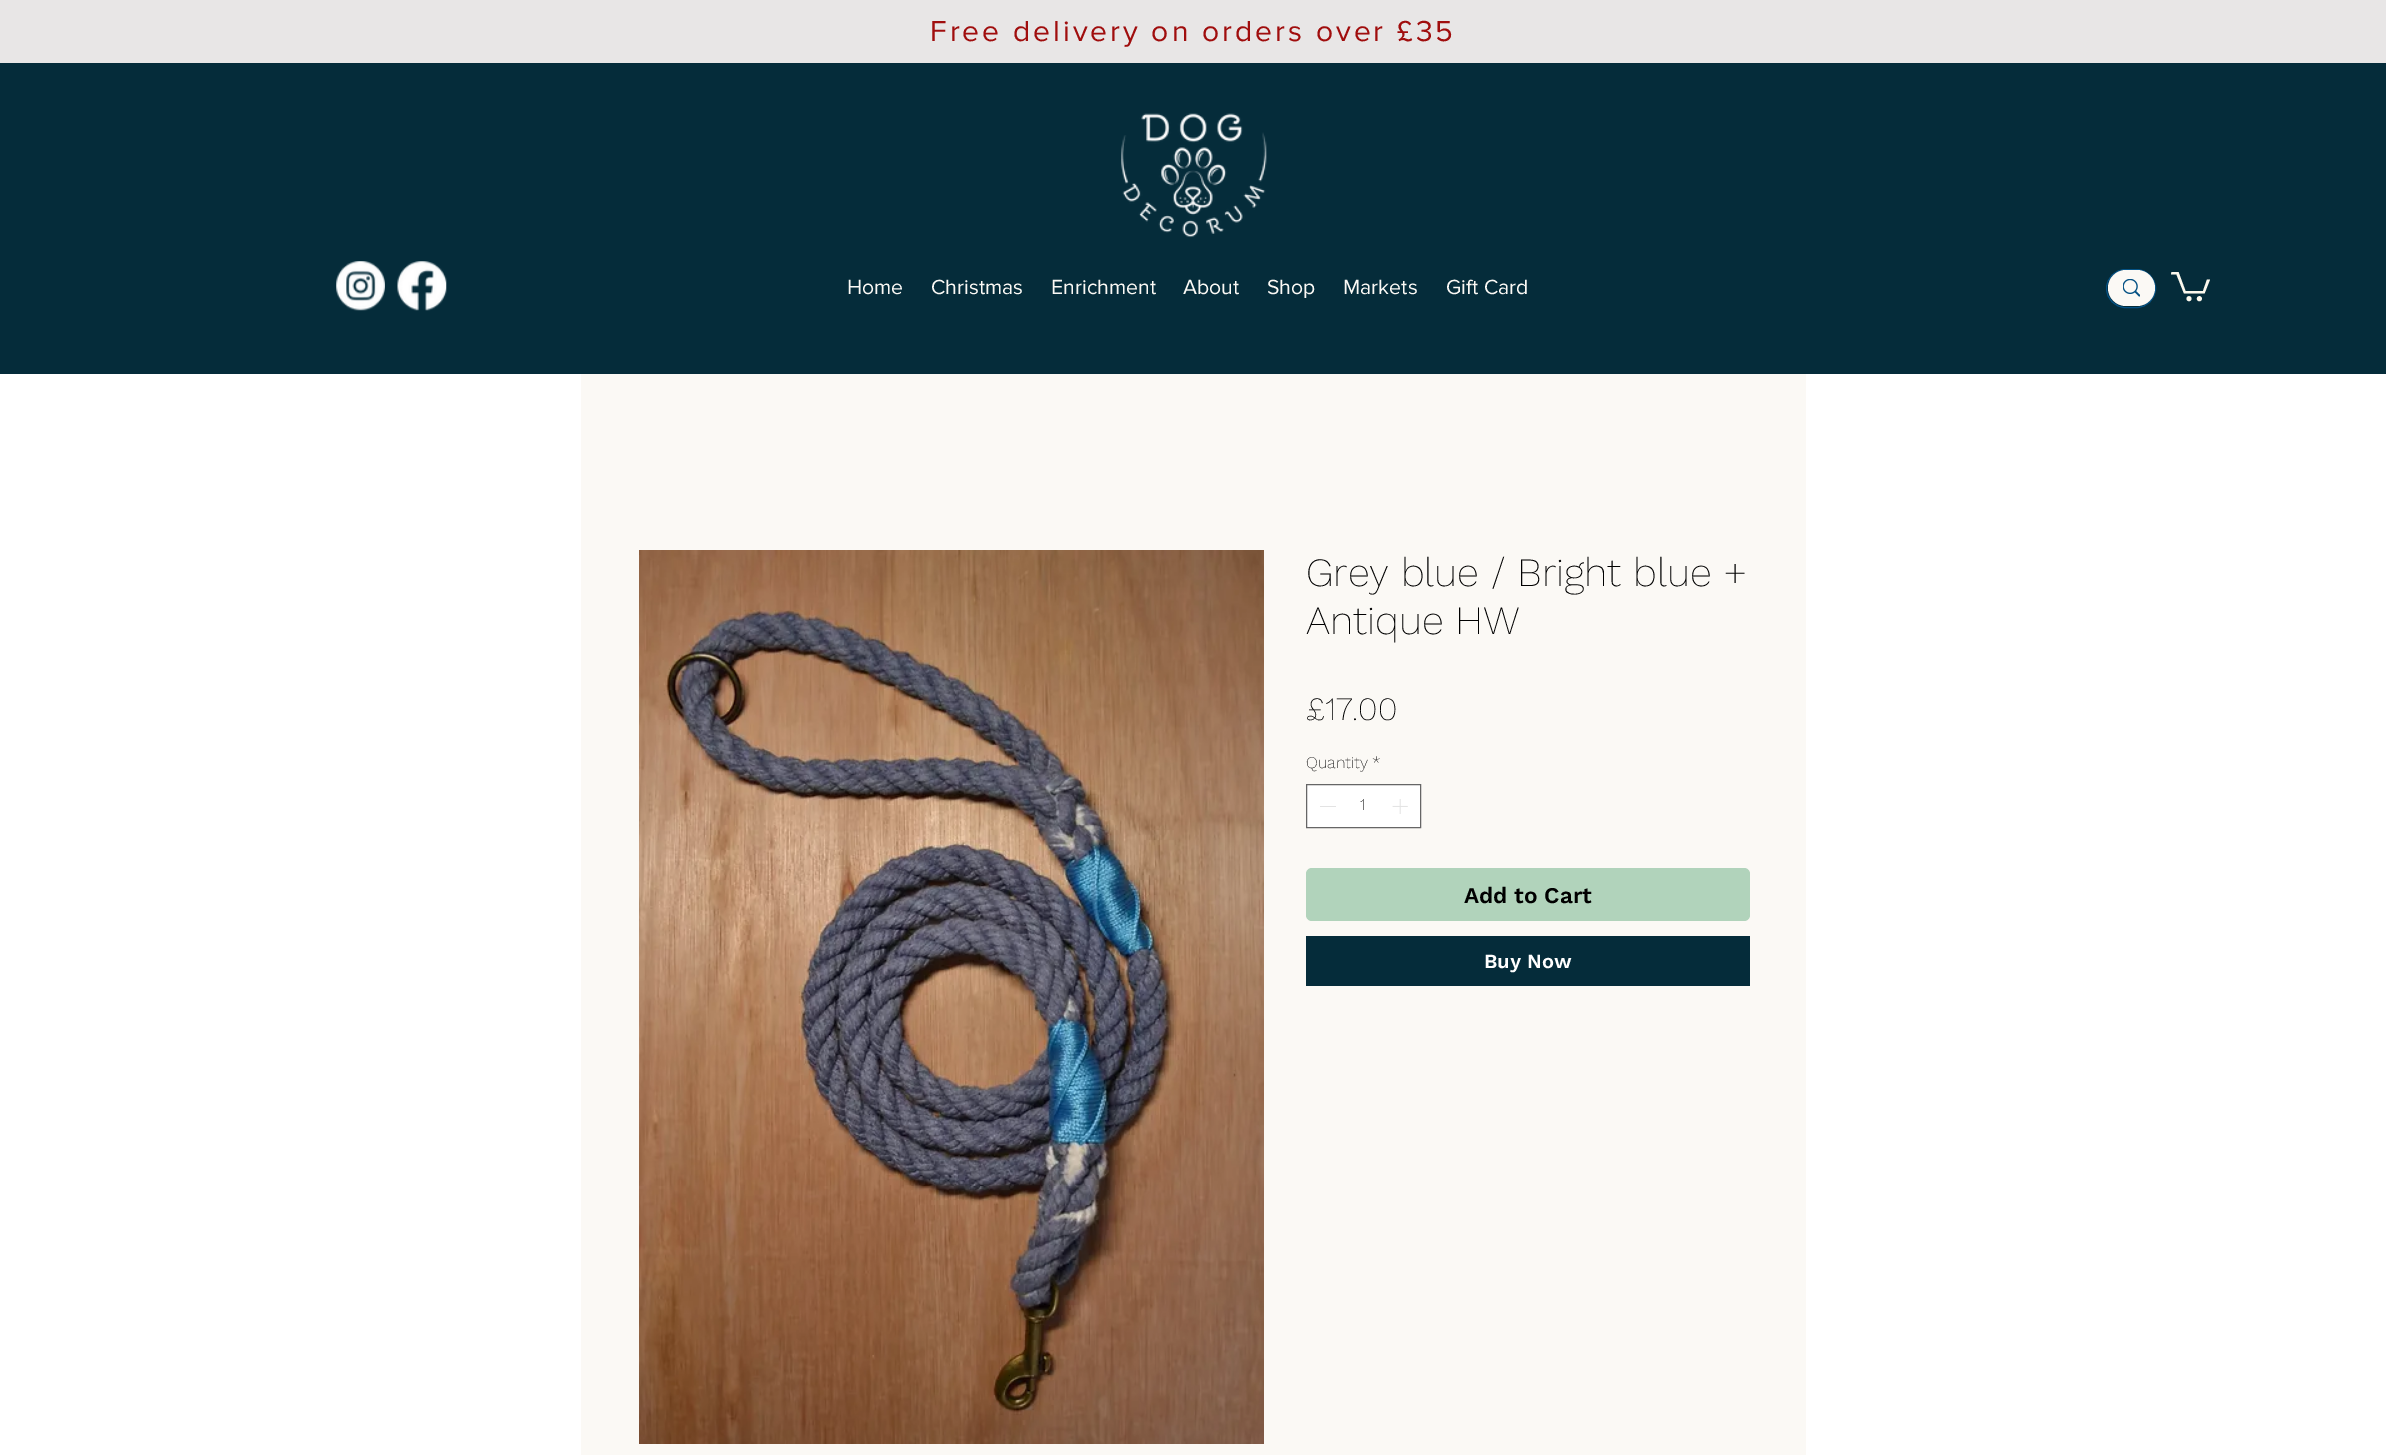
%!PS-Adobe-3.0
%%BoundingBox: 0 0 2386 1455
%%LanguageLevel: 3
%%Pages: 1
%%EndComments
%%BeginProlog
/setink { dup -16 bitshift 255 div exch dup -8 bitshift 255 and 255 div exch 255 and 255 div setrgbcolor } def
/usefont { [ exch dup neg 0 0 3 -1 roll 0 0 ] selectfont } def
/disc { newpath 0 360 arc closepath } def
/rrect { 5 dict begin { /r /h /w /y /x } { exch def } forall
  x r add y moveto x w add y 2 copy h add r arct x w add y h add x 1 index r arct
  x y h add x y r arct x y 2 copy exch w add exch r arct closepath end } def
/drawimage { 5 dict begin { /h /w /y /x /name } { exch def } forall
  gsave x y translate w h scale
  w h 8 [w 0 0 h 0 0] name (r) file false 3 colorimage grestore end } def
%%EndProlog
%%BeginSetup
<< /PageSize [2386 1455] >> setpagedevice
%%EndSetup
%%Page: 1 1
0 1455 translate 1 -1 scale
4 setmiterlimit
16#FFFFFF setink
0 0 2386 1455 rectfill
16#E8E6E6 setink
0 0 2386 63 rectfill
/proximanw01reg-Regular 30 usefont
16#A00D0D setink
930 41 moveto 3 0 (Free delivery on orders over £35) ashow
16#052C3A setink
0 63 2386 311 rectfill
(img1.raw) 1121 113 146 125 drawimage
(img2.raw) 336 261 49 50 drawimage
(img3.raw) 397 261 50 50 drawimage
/proximanw01reg-Regular 21.25 usefont
16#FBF9F5 setink
[
    [(Home) 847 294]
    [(Christmas) 931 294]
    [(Enrichment) 1051 294]
    [(About) 1183 294]
    [(Shop) 1267 294]
    [(Markets) 1343 294]
    [(Gift Card) 1446 294]
] { aload pop moveto show } forall
16#045184 setink
2106.5 269.5 49 38 19 rrect stroke
16#FBF9F5 setink
2108 270 47 36 18 rrect fill
(img4.raw) 2123 279 17 18 drawimage
16#FCF8ED setink
2210 279.5 moveto 2204.5 293.5 lineto 2184 293.5 lineto 2176.5 274.5 lineto 2171 274.5 lineto 2171.5 272 lineto 2178.5 272 lineto 2185.5 291 lineto 2203 291 lineto 2207 279.5 lineto fill
2199.4 298.7 2.5 disc fill
2189 298.7 2.5 disc fill
16#FBF9F5 setink
581 374 1225 1081 rectfill
(img5.raw) 639 550 625 894 drawimage
/WorkSans-ExtraLight 40 usefont
16#000000 setink
1306 586 moveto (Grey blue / Bright blue +) show
1306 634 moveto (Antique HW) show
/WorkSans-ExtraLight 32.5 usefont
1306 720 moveto (£17.00) show
/WorkSans-ExtraLight 16.25 usefont
1306 768 moveto (Quantity *) show
16#FFFFFF setink
1306.5 784.5 moveto 1420.5 784.5 lineto 1420.5 827.5 lineto 1306.5 827.5 lineto closepath gsave fill grestore
16#666666 setink
stroke
16#E3E3E3 setink
1320 806 16 1 rectfill
16#000000 setink
1360 810 moveto (1) show
(img6.raw) 1392 799 16 15 drawimage
16#B1D3BB setink
1306 868 444 53 6 rrect fill
/WorkSans-SemiBold 22.5 usefont
16#000000 setink
1464 903 moveto (Add to Cart) show
16#052C3A setink
1306 936 444 50 rectfill
/WorkSans-SemiBold 20 usefont
16#FFFFFF setink
1484 968 moveto (Buy Now) show
showpage
%%EOF
